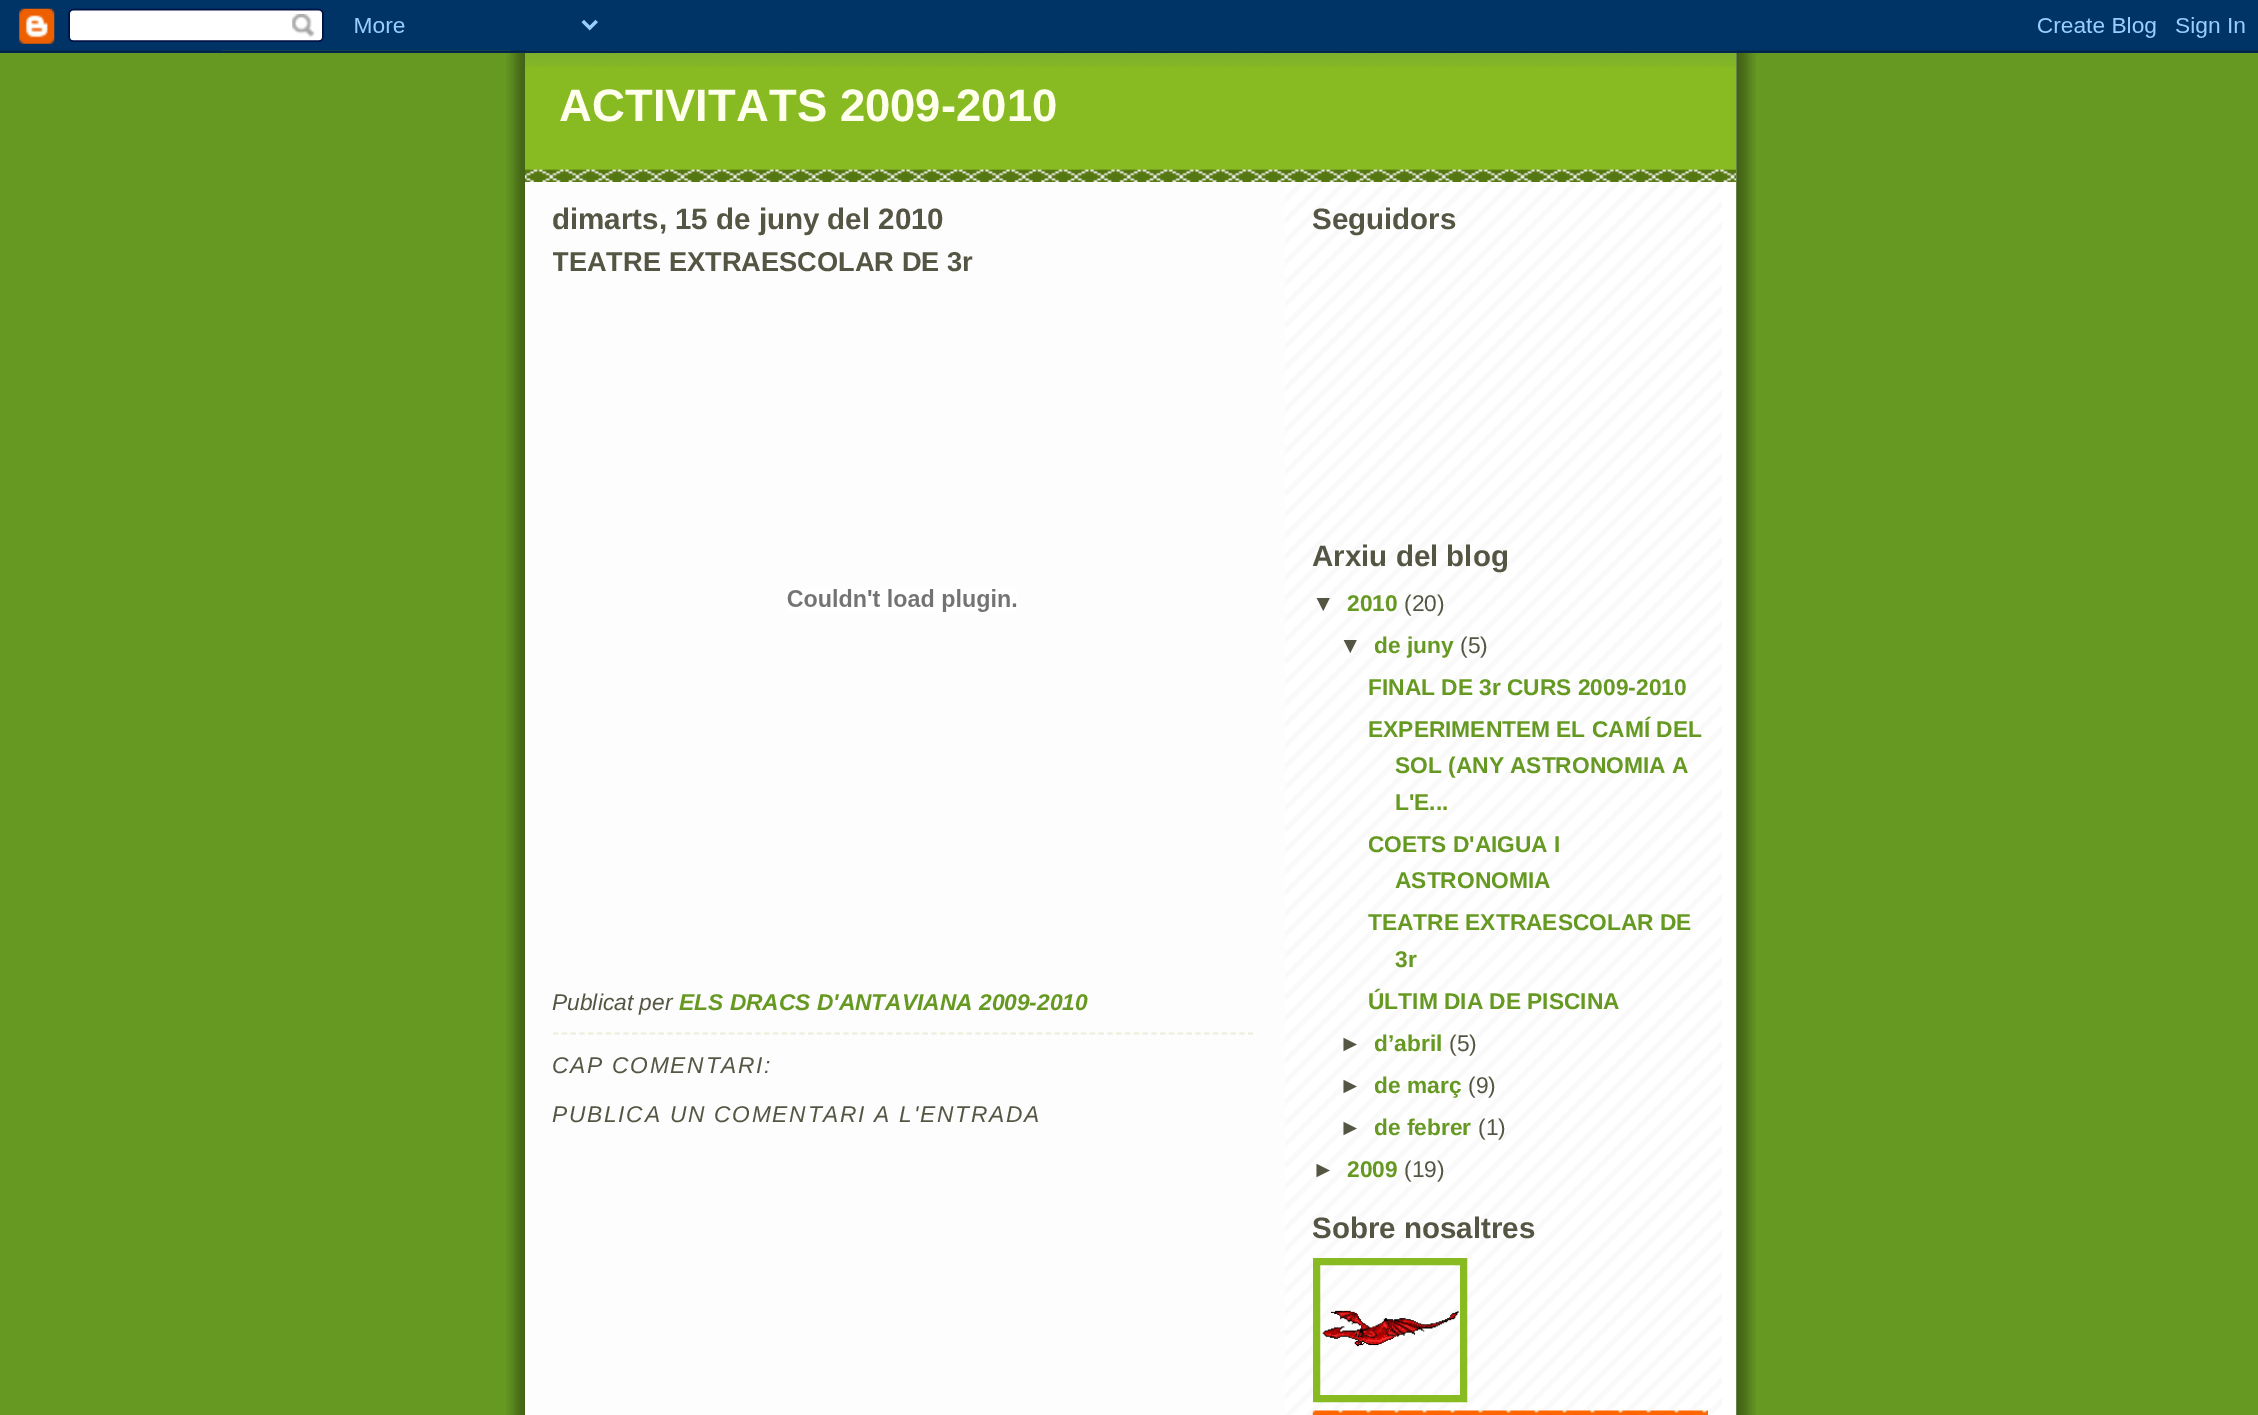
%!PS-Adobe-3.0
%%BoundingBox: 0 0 2258 1415
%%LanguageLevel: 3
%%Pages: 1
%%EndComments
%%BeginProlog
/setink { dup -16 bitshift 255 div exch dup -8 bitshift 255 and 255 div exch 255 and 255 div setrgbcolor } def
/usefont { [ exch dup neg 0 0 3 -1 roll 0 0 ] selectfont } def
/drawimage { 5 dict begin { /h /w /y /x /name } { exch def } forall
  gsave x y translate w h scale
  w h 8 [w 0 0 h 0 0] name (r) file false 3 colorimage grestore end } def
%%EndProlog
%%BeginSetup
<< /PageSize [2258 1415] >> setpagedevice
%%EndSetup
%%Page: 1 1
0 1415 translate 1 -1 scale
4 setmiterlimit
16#669922 setink
0 0 2258 1415 rectfill
(img1.raw) 506 50 1250 1365 drawimage
(img2.raw) 0 0 2258 53 drawimage
16#FFFFFF setink
525 182 3 1233 rectfill
(img3.raw) 1285 182 451 1233 drawimage
16#88BB22 setink
525 67 1211 102 rectfill
(img4.raw) 525 169 1211 13 drawimage
(img5.raw) 525 53 1211 14 drawimage
/LiberationSans-Bold 45.5 usefont
16#FFFFEE setink
559 121 moveto (ACTIVITATS 2009-2010) show
/LiberationSans-Bold 29.5 usefont
16#555544 setink
552 229 moveto (dimarts, 15 de juny del 2010) show
gsave
553 182 700 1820 rectclip
/LiberationSans-Bold 27.25 usefont
552 271 moveto (TEATRE EXTRAESCOLAR DE 3r) show
grestore
(img6.raw) 787 589 230 23 drawimage
/LiberationSans-Italic 22.75 usefont
552 1010 moveto (Publicat per) show
/LiberationSans-BoldItalic 22.75 usefont
16#669922 setink
679 1010 moveto (ELS DRACS D'ANTAVIANA 2009-2010) show
16#EEEEDD setink
1.8 setlinewidth
[5.25 3.55] 0 setdash
553 1033.5 moveto 1253 1033.5 lineto stroke
/LiberationSans-Italic 22.75 usefont
16#555544 setink
552 1073 moveto 1.75 0 (CAP COMENTARI:) ashow
552 1122 moveto 1.75 0 (PUBLICA UN COMENTARI A L'ENTRADA) ashow
/LiberationSans-Bold 29.5 usefont
1312 229 moveto (Seguidors) show
1312 566 moveto (Arxiu del blog) show
/LiberationSans-Bold 22.75 usefont
1312 611 moveto (▼) show
16#669922 setink
1347 611 moveto (2010) show
/LiberationSans-Regular 22.75 usefont
16#555544 setink
1404 611 moveto (\(20\)) show
/LiberationSans-Bold 22.75 usefont
1339 653 moveto (▼) show
16#669922 setink
1374 653 moveto (de juny) show
/LiberationSans-Regular 22.75 usefont
16#555544 setink
1460 653 moveto (\(5\)) show
/LiberationSans-Bold 22.75 usefont
16#669922 setink
[
    [(FINAL DE 3r CURS 2009-2010) 1368 695]
    [(EXPERIMENTEM EL CAMÍ DEL) 1368 737]
    [(SOL \(ANY ASTRONOMIA A) 1395 773]
    [(L'E...) 1395 810]
    [(COETS D'AIGUA I) 1368 852]
    [(ASTRONOMIA) 1395 888]
    [(TEATRE EXTRAESCOLAR DE) 1368 930]
    [(3r) 1395 967]
    [(ÚLTIM DIA DE PISCINA) 1368 1009]
] { aload pop moveto show } forall
16#555544 setink
1339 1051 moveto (►) show
16#669922 setink
1374 1051 moveto (d’abril) show
/LiberationSans-Regular 22.75 usefont
16#555544 setink
1449 1051 moveto (\(5\)) show
/LiberationSans-Bold 22.75 usefont
1339 1093 moveto (►) show
16#669922 setink
1374 1093 moveto (de març) show
/LiberationSans-Regular 22.75 usefont
16#555544 setink
1468 1093 moveto (\(9\)) show
/LiberationSans-Bold 22.75 usefont
1339 1135 moveto (►) show
16#669922 setink
1374 1135 moveto (de febrer) show
/LiberationSans-Regular 22.75 usefont
16#555544 setink
1478 1135 moveto (\(1\)) show
/LiberationSans-Bold 22.75 usefont
1312 1177 moveto (►) show
16#669922 setink
1347 1177 moveto (2009) show
/LiberationSans-Regular 22.75 usefont
16#555544 setink
1404 1177 moveto (\(19\)) show
/LiberationSans-Bold 29.5 usefont
1312 1238 moveto (Sobre nosaltres) show
16#88BB22 setink
7 setlinewidth
[] 0 setdash
1316.5 1261.5 147 137 rectstroke
(img7.raw) 1322 1310 137 37 drawimage
(img8.raw) 1312 1410 396 5 drawimage
showpage
%%EOF
